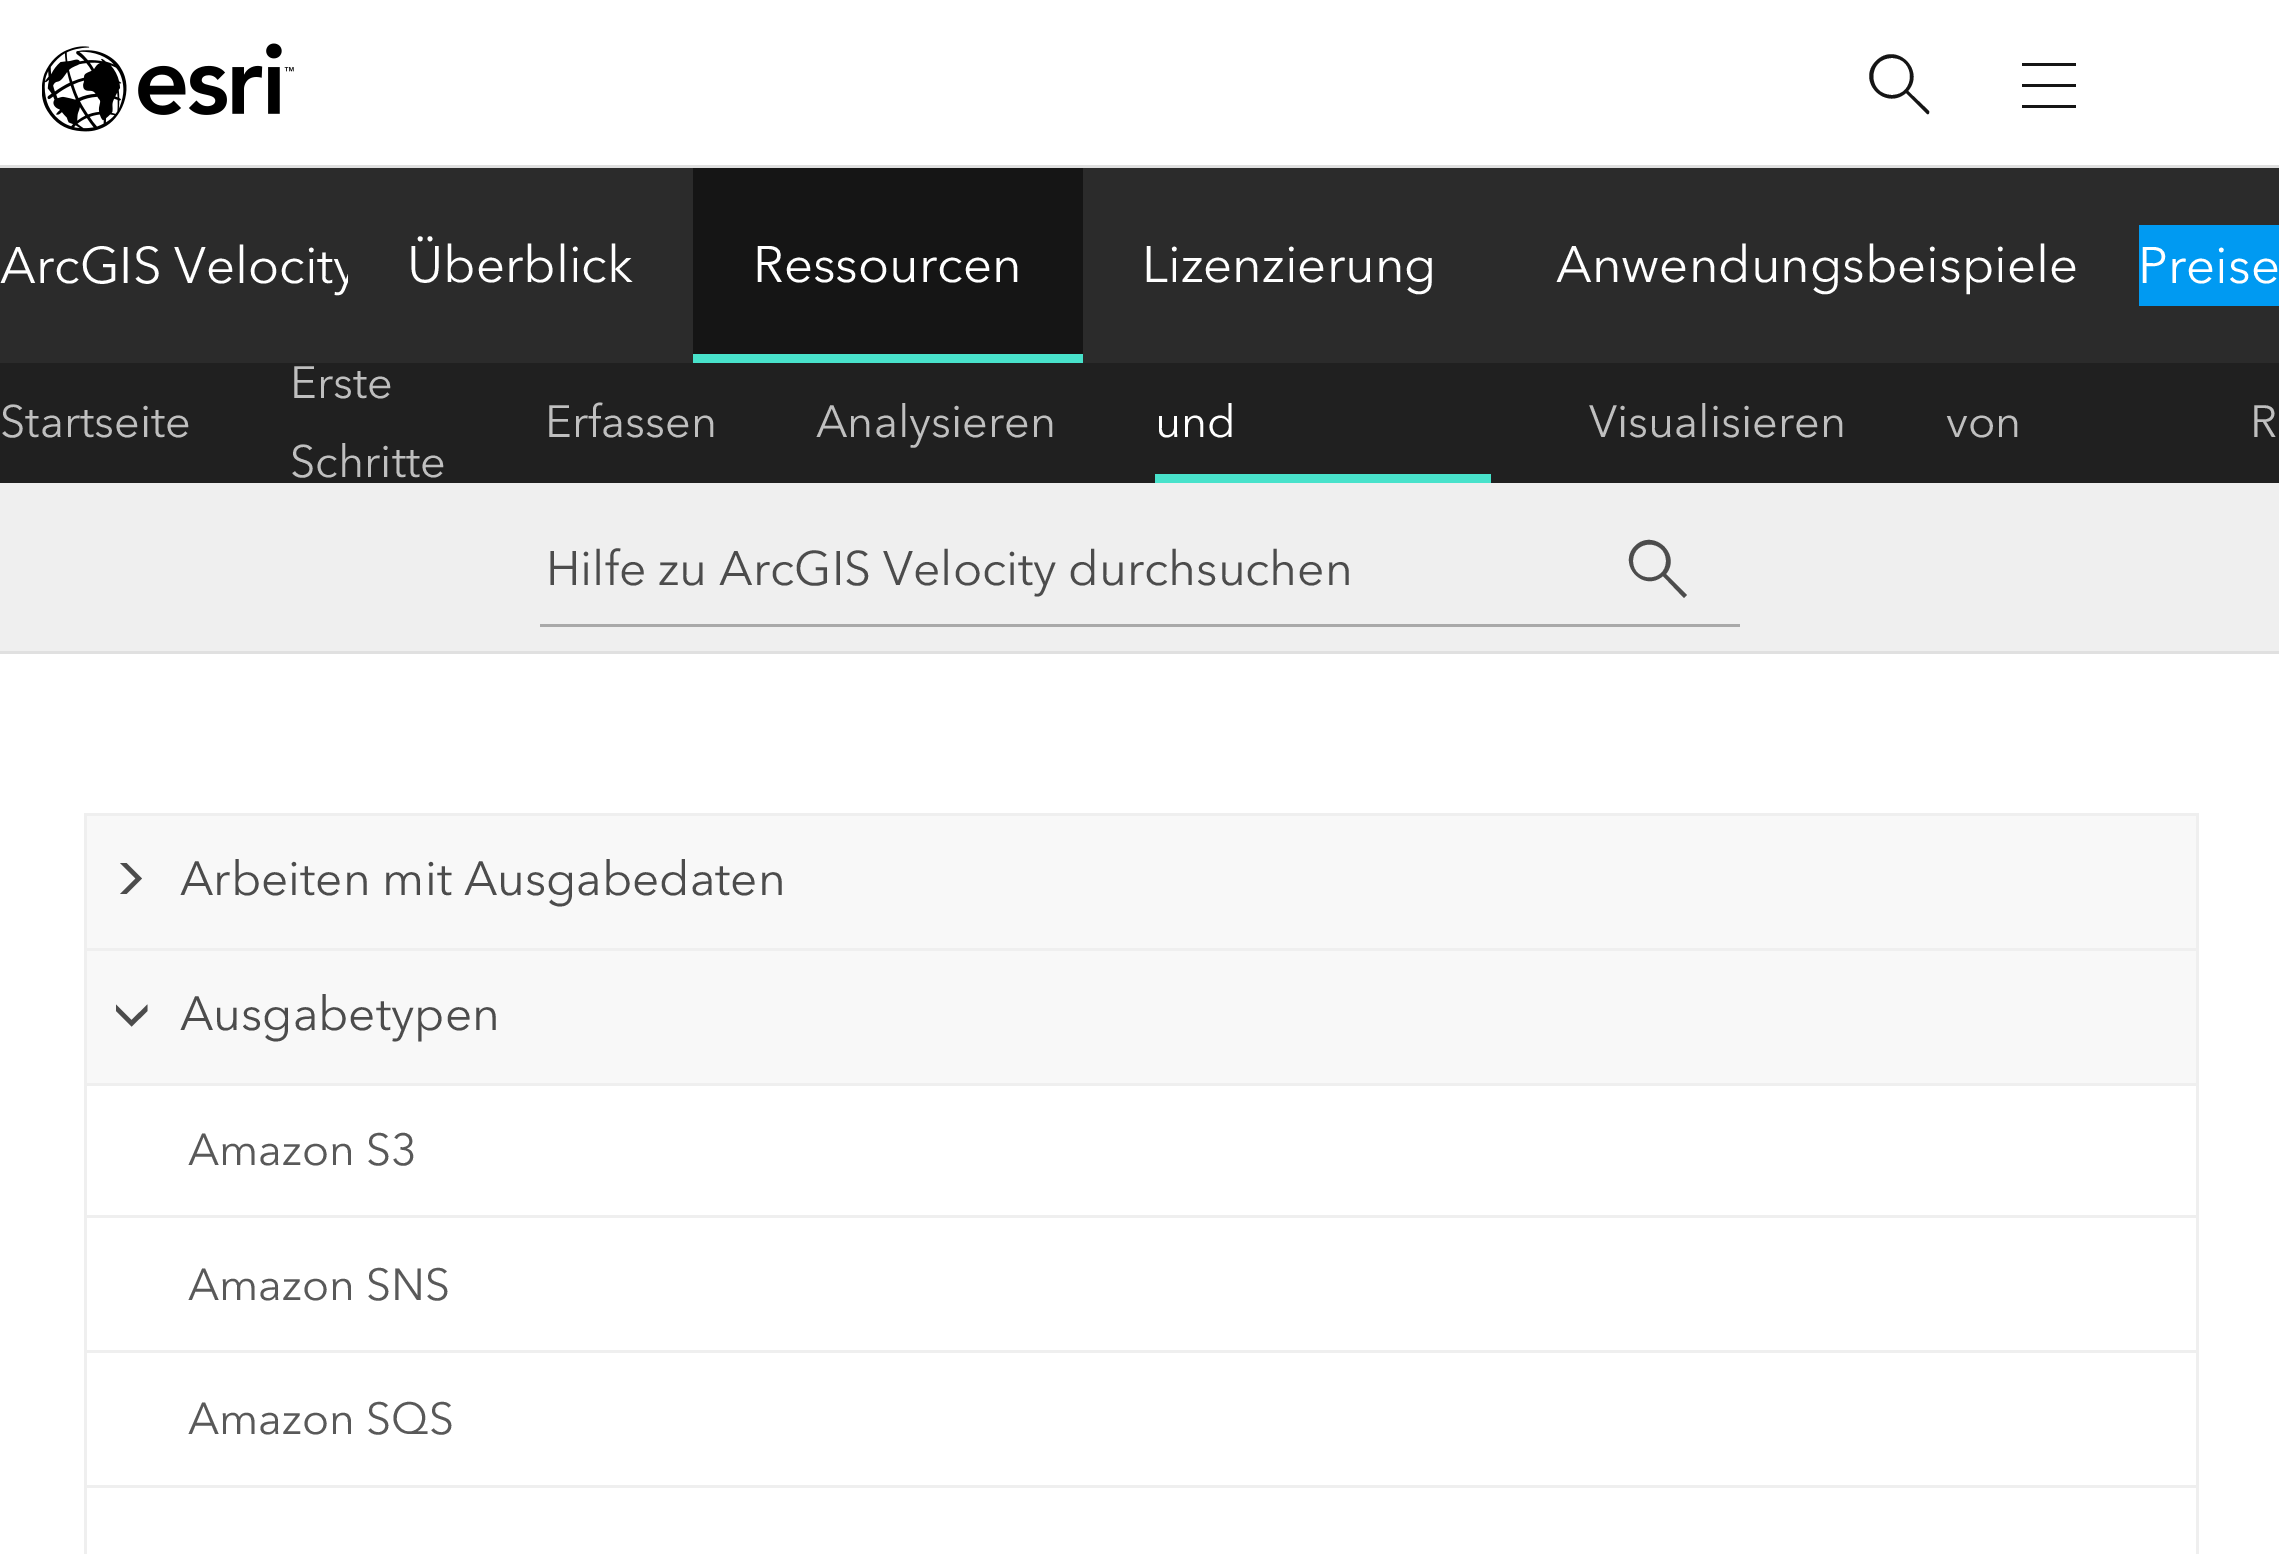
%!PS-Adobe-3.0
%%BoundingBox: 0 0 2279 1554
%%LanguageLevel: 3
%%Pages: 1
%%EndComments
%%BeginProlog
/setink { dup -16 bitshift 255 div exch dup -8 bitshift 255 and 255 div exch 255 and 255 div setrgbcolor } def
/usefont { [ exch dup neg 0 0 3 -1 roll 0 0 ] selectfont } def
/drawimage { 5 dict begin { /h /w /y /x /name } { exch def } forall
  gsave x y translate w h scale
  w h 8 [w 0 0 h 0 0] name (r) file false 3 colorimage grestore end } def
%%EndProlog
%%BeginSetup
<< /PageSize [2279 1554] >> setpagedevice
%%EndSetup
%%Page: 1 1
0 1554 translate 1 -1 scale
4 setmiterlimit
16#FFFFFF setink
0 0 2279 1554 rectfill
16#DFDFDF setink
0 165 2279 3 rectfill
(img1.raw) 42 43 252 89 drawimage
16#151515 setink
1929 111 moveto 1908 91 lineto 1926 70 1896 41 1876 61 curveto 1856 81 1885 111 1906 93 curveto 1927 114 lineto 1928 115 1930 113 1929 111 curveto closepath 1892 95 moveto 1867 95 1867 58 1892 58 curveto 1916 58 1916 95 1892 95 curveto closepath fill
2022 63 moveto 2076 63 lineto 2076 66 lineto 2022 66 lineto closepath 2022 87 moveto 2076 87 lineto 2076 84 lineto 2022 84 lineto closepath 2022 108 moveto 2076 108 lineto 2076 105 lineto 2022 105 lineto closepath fill
16#2B2B2B setink
0 168 2279 195 rectfill
gsave
0 168 348 195 rectclip
/AvenirNext-Regular 51 usefont
16#FFFFFF setink
0 283 moveto (ArcGIS Velocity) show
grestore
/AvenirNext-Regular 51 usefont
16#FFFFFF setink
407 282 moveto (Überblick) show
16#151515 setink
693 168 390 186 rectfill
16#48E2CB setink
693 354 390 9 rectfill
16#FFFFFF setink
[
    [(Ressourcen) 753 282]
    [(Lizenzierung) 1142 282]
    [(Anwendungsbeispiele) 1556 282]
] { aload pop moveto show } forall
16#009AF2 setink
2139 225 140 81 rectfill
16#FFFFFF setink
2138 283 moveto (Preise) show
16#202020 setink
0 363 2279 120 rectfill
/AvenirNext-Regular 45 usefont
16#BFBFBF setink
[
    [(Startseite) 0 437]
    [(Erste) 290 398]
    [(Schritte) 290 477]
    [(Erfassen) 545 437]
    [(Analysieren) 816 437]
] { aload pop moveto show } forall
16#48E2CB setink
1155 474 336 9 rectfill
16#FFFFFF setink
1155 437 moveto (und) show
16#BFBFBF setink
[
    [(Visualisieren) 1589 437]
    [(von) 1946 437]
    [(R) 2250 437]
] { aload pop moveto show } forall
[
    [0 483 2279 168 16#EFEFEF]
    [0 651 2279 3 16#E0E0E0]
    [540 624 1200 3 16#A9A9A9]
] { aload pop setink rectfill } forall
/AvenirNext-Regular 48 usefont
16#4C4C4C setink
546 585 moveto (Hilfe zu ArcGIS Velocity durchsuchen) show
1687 595 moveto 1666 574 lineto 1682 554 1653 528 1635 546 curveto 1617 564 1643 593 1663 576 curveto 1684 598 lineto closepath 1633 561 moveto 1633 539 1666 539 1666 561 curveto 1666 583 1633 583 1633 561 curveto closepath fill
[
    [2196 813 3 741 16#EFEFEF]
    [84 813 3 741 16#EFEFEF]
    [87 816 2109 132 16#F8F8F8]
    [87 813 2109 3 16#EFEFEF]
] { aload pop setink rectfill } forall
16#4C4C4C setink
120 863 moveto 126.5 863 lineto 142 878.5 lineto 126.5 894 lineto 120 894 lineto 135.5 878.5 lineto closepath fill
/AvenirNext-Regular 47.75 usefont
180 895 moveto (Arbeiten mit Ausgabedaten) show
16#F8F8F8 setink
87 951 2109 132 rectfill
16#EFEFEF setink
87 948 2109 3 rectfill
16#4C4C4C setink
147.5 1004.5 moveto 147.5 1011 lineto 131.5 1026.5 lineto 116 1011 lineto 116 1004.5 lineto 131.5 1020 lineto closepath fill
180 1030 moveto (Ausgabetypen) show
16#EFEFEF setink
87 1083 2109 3 rectfill
/AvenirNext-Regular 44.5 usefont
16#595959 setink
188 1165 moveto (Amazon S3) show
16#EFEFEF setink
87 1215 2109 3 rectfill
16#595959 setink
188 1300 moveto (Amazon SNS) show
16#EFEFEF setink
87 1350 2109 3 rectfill
16#595959 setink
188 1434 moveto (Amazon SQS) show
16#EFEFEF setink
87 1485 2109 3 rectfill
showpage
%%EOF
